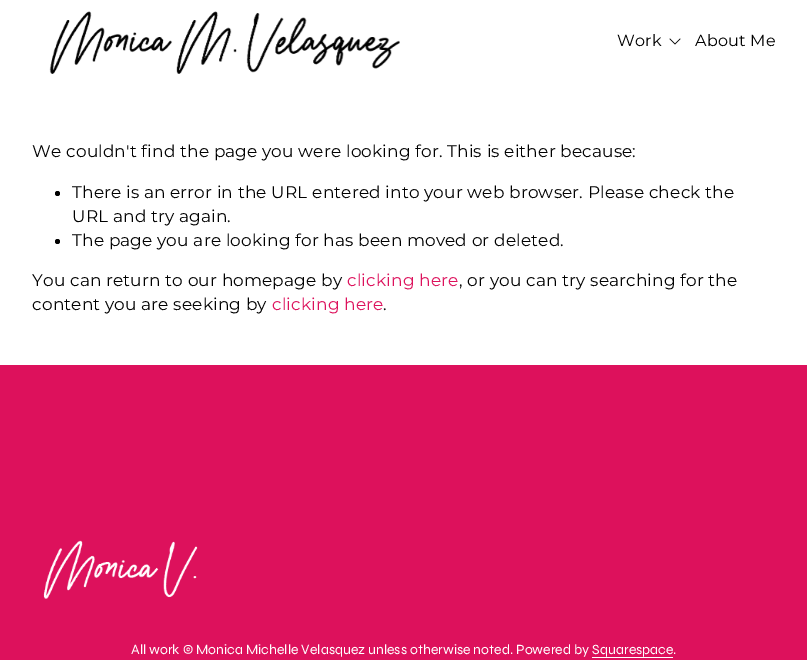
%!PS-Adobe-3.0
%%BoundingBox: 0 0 807 660
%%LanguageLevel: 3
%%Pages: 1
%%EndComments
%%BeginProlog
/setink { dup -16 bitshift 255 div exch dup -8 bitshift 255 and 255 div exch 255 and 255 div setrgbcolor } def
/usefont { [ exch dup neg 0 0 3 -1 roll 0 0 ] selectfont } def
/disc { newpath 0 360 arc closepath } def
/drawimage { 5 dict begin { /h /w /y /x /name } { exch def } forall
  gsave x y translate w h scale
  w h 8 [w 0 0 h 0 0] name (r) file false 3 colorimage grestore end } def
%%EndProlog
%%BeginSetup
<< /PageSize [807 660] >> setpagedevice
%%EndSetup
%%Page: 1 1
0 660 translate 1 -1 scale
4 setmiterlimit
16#FFFFFF setink
0 0 807 660 rectfill
(img1.raw) 49 11 351 63 drawimage
/Montserrat-Regular 16 usefont
16#000000 setink
617 46 moveto 0.25 0 (Work) ashow
0.7 setlinewidth
2 setlinecap
680 39 moveto 675 44 lineto 670 39 lineto stroke
695 46 moveto 0.25 0 (About Me) ashow
/Montserrat-Regular 16.95 usefont
32 157 moveto 0.17 0 (We couldn't find the page you were looking for. This is either because:) ashow
57.5 193.5 2.5 disc fill
72 198 moveto 0.17 0 (There is an error in the URL entered into your web browser. Please check the) ashow
72 222 moveto 0.17 0 (URL and try again.) ashow
57.5 241.5 2.5 disc fill
72 246 moveto 0.17 0 (The page you are looking for has been moved or deleted.) ashow
32 286 moveto 0.17 0 (You can return to our homepage by) ashow
16#DD115C setink
347 286 moveto 0.17 0 (clicking here) ashow
16#000000 setink
459 286 moveto 0.17 0 (, or you can try searching for the) ashow
32 310 moveto 0.17 0 (content you are seeking by) ashow
16#DD115C setink
272 310 moveto 0.17 0 (clicking here) ashow
16#000000 setink
383 310 moveto 0.17 0 (.) ashow
16#DD115C setink
0 365 807 295 rectfill
(img2.raw) 43 540 155 59 drawimage
/Syne-Regular 14.05 usefont
16#FFFFFF setink
131 654 moveto (All work © Monica Michelle Velasquez unless otherwise noted. Powered by Squarespace.) show
592 657 81 1 rectfill
showpage
%%EOF
